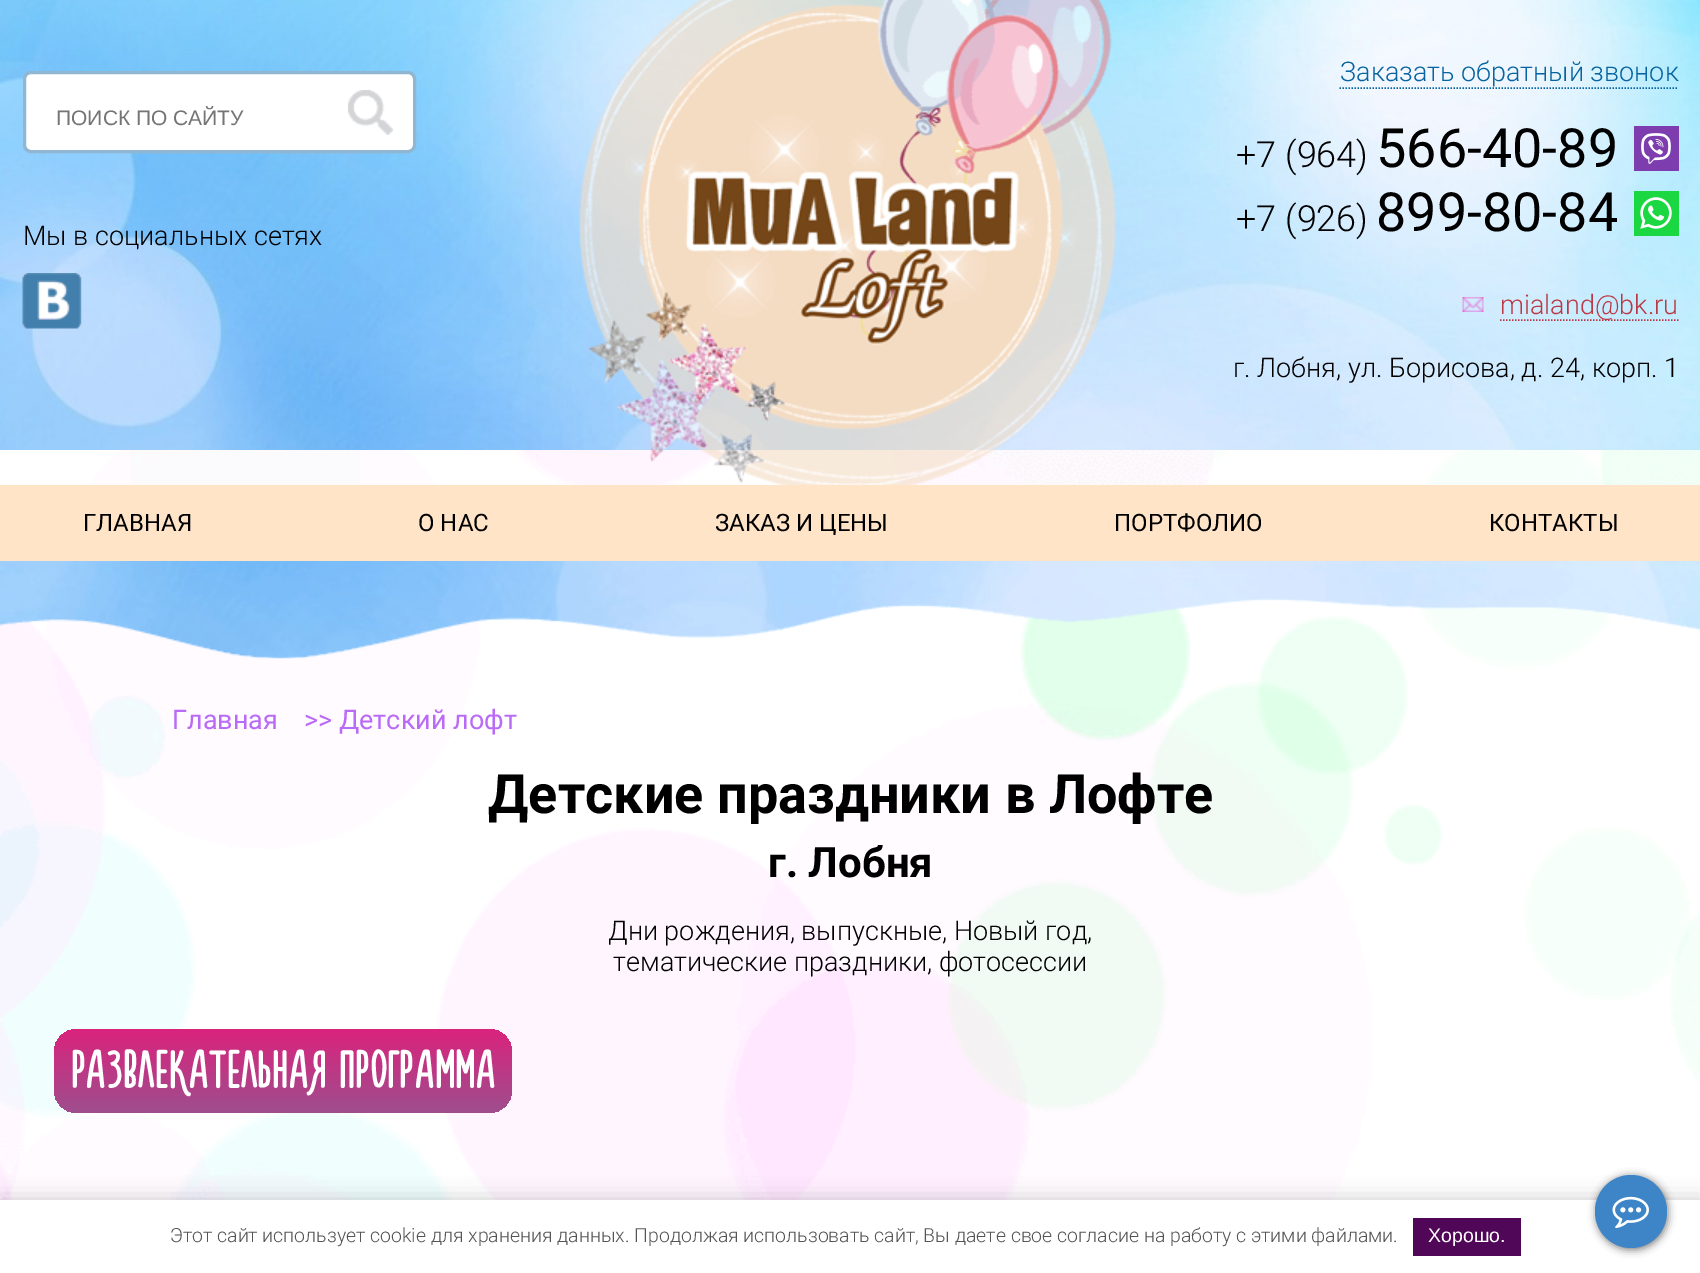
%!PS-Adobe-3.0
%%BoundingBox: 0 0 1700 1273
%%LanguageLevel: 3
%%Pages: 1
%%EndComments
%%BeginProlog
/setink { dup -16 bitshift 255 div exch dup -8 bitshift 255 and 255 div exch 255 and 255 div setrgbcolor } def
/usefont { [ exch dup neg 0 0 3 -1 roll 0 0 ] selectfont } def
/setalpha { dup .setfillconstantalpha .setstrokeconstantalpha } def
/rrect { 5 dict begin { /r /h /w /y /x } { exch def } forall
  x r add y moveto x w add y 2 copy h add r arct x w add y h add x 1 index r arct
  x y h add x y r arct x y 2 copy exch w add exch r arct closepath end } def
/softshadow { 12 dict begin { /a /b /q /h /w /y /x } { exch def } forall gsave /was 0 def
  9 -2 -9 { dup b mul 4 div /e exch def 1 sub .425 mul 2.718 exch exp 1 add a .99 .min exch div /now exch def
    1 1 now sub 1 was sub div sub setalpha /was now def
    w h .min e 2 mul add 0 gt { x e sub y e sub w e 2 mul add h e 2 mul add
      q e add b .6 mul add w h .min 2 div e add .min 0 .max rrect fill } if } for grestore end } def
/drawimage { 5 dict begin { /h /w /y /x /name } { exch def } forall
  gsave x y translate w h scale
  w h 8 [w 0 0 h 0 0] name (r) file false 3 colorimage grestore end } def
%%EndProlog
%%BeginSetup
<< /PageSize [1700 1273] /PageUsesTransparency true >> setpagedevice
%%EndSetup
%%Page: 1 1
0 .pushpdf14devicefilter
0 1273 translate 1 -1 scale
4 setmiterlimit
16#FFFFFF setink
0 0 1700 1273 rectfill
(img1.raw) 0 450 1700 750 drawimage
(img2.raw) 0 0 1700 450 drawimage
24.5 72.5 390 79 6.5 rrect gsave fill grestore
16#90B6D1 setink
3 setlinewidth
stroke
/LiberationSans-Regular 21 usefont
16#757575 setink
56 125 moveto (ПОИСК ПО САЙТУ) show
(img3.raw) 348 90 45 45 drawimage
/Roboto-Light 27 usefont
16#000000 setink
23 245 moveto (Мы в социальных сетях) show
(img4.raw) 22 273 60 56 drawimage
(img5.raw) 579 0 538 485 drawimage
16#0764A0 setink
1.5 setlinewidth
[1.5 1.5] 0 setdash
1339.5 88 moveto 1678.5 88 lineto stroke
1340 81 moveto (Заказать обратный звонок) show
/Roboto-Light 36 usefont
16#000000 setink
1236 167 moveto (+7 \(964\)) show
/Roboto-Regular 54 usefont
1376 167 moveto (566-40-89) show
(img6.raw) 1634 126 45 45 drawimage
/Roboto-Light 36 usefont
1236 231 moveto (+7 \(926\)) show
/Roboto-Regular 54 usefont
1376 231 moveto (899-80-84) show
(img7.raw) 1634 191 45 45 drawimage
16#BA3943 setink
1500 320 moveto 1678.5 320 lineto stroke
(img8.raw) 1462 297 22 15 drawimage
/Roboto-Light 27 usefont
1500 314 moveto (mialand@bk.ru) show
16#000000 setink
1233 377 moveto (г. Лобня, ул. Борисова, д. 24, корп. 1) show
16#FFE4C8 setink
0 485 1700 76 rectfill
/Roboto-Regular 24 usefont
16#000000 setink
[
    [(ГЛАВНАЯ) 83 531]
    [(О НАС) 418 531]
    [(ЗАКАЗ И ЦЕНЫ) 715 531]
    [(ПОРТФОЛИО) 1114 531]
    [(КОНТАКТЫ) 1489 531]
] { aload pop moveto show } forall
(img9.raw) 0 561 1700 98 drawimage
/Roboto-Regular 27 usefont
16#B96AF6 setink
172 729 moveto (Главная) show
304 729 moveto (>> Детский лофт) show
/Roboto-Bold 54 usefont
16#000000 setink
488 813 moveto (Детские праздники в Лофте) show
/Roboto-Bold 42 usefont
768 877 moveto (г. Лобня) show
/Roboto-Light 27 usefont
608 940 moveto (Дни рождения, выпускные, Новый год,) show
613 971 moveto (тематические праздники, фотосессии) show
gsave 54 1029 458 84 23 rrect clip newpath
<< /ShadingType 2 /ColorSpace /DeviceRGB /Coords [283 1113 283 1029] /Extend [true true] /Function << /FunctionType 2 /Domain [0 1] /C0 [0.62 0.306 0.557] /C1 [0.855 0.137 0.486] /N 1 >> >> shfill grestore
/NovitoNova-Regular 60 usefont
16#FFFFFF setink
71 1088 moveto (РАЗВЛЕКАТЕЛЬНАЯ ПРОГРАММА) show
16#000000 setink
0 1200 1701 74 0 11 0.2 softshadow
16#FFFFFF setink
0 1200 1700 73 rectfill
/Roboto-Light 19.5 usefont
16#555555 setink
170 1242 moveto (Этот сайт использует cookie для хранения данных. Продолжая использовать сайт, Вы даете свое согласие на работу с этими файлами.) show
16#510757 setink
1413 1218 108 38 rectfill
/LiberationSans-Regular 19.5 usefont
16#FFFFFF setink
1428 1242 moveto (Хорошо.) show
16#000000 setink
1596 1176 72 74 36 4 0.5 softshadow
16#3D85C6 setink
1595 1175 72 73 36 rrect fill
(img10.raw) 1612 1196 37 33 drawimage
.poppdf14devicefilter showpage
%%EOF
